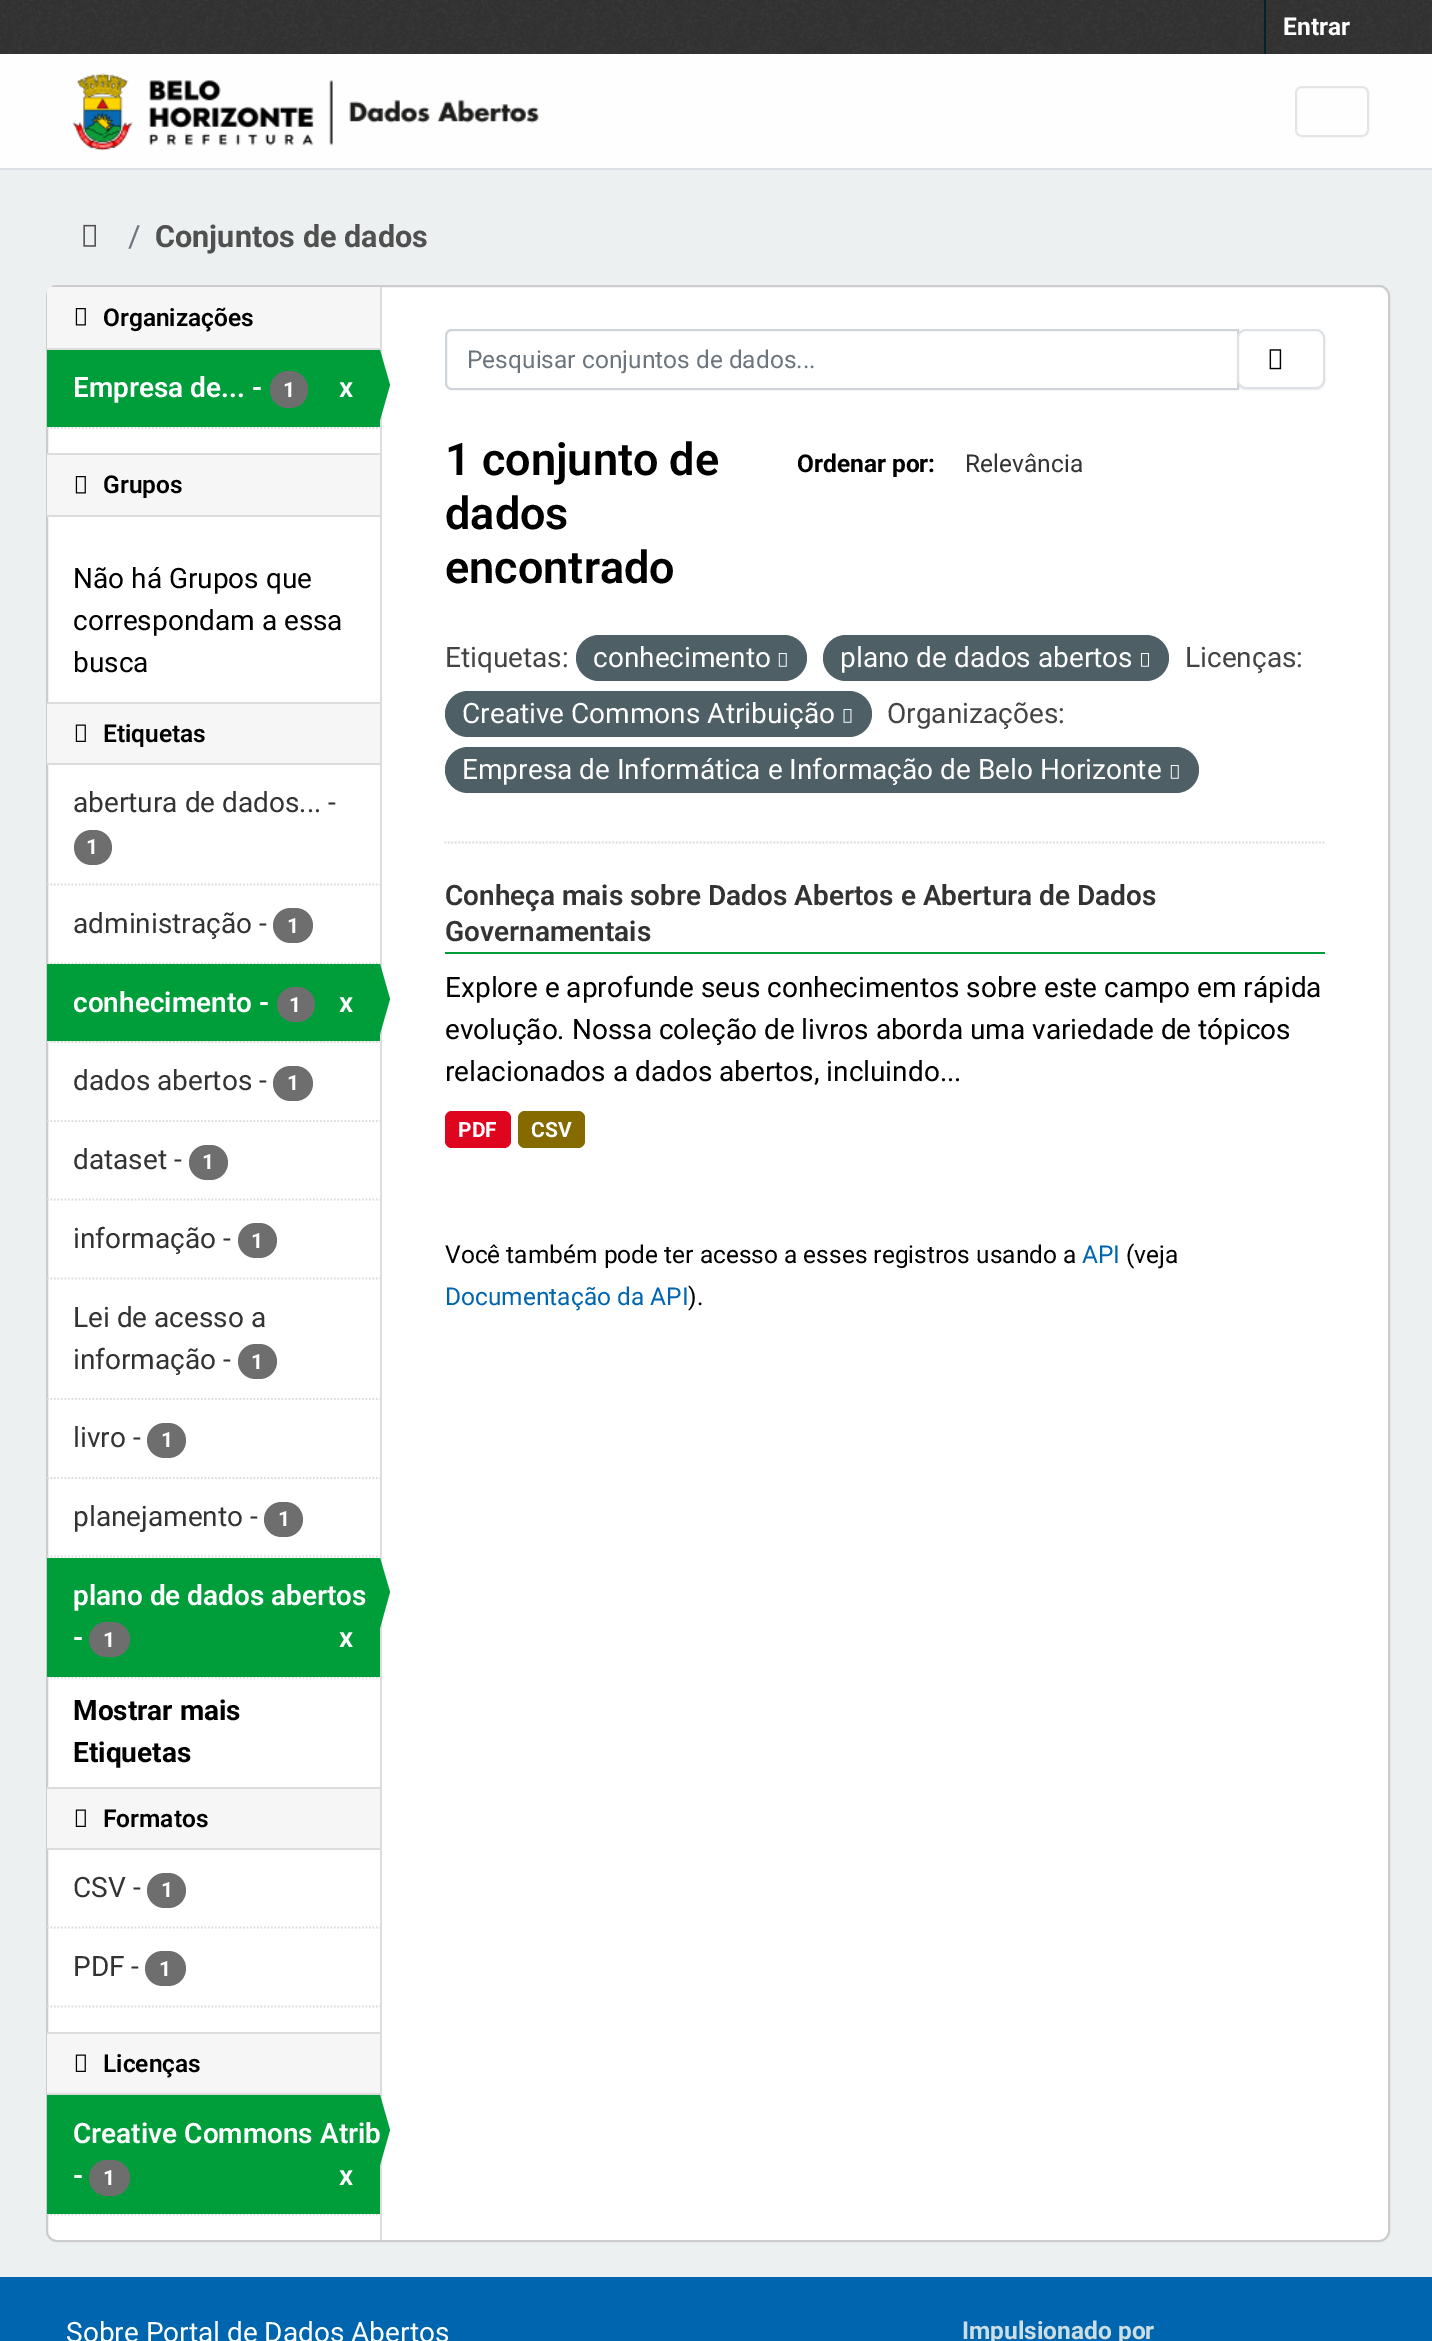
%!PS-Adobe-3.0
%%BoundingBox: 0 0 1432 2341
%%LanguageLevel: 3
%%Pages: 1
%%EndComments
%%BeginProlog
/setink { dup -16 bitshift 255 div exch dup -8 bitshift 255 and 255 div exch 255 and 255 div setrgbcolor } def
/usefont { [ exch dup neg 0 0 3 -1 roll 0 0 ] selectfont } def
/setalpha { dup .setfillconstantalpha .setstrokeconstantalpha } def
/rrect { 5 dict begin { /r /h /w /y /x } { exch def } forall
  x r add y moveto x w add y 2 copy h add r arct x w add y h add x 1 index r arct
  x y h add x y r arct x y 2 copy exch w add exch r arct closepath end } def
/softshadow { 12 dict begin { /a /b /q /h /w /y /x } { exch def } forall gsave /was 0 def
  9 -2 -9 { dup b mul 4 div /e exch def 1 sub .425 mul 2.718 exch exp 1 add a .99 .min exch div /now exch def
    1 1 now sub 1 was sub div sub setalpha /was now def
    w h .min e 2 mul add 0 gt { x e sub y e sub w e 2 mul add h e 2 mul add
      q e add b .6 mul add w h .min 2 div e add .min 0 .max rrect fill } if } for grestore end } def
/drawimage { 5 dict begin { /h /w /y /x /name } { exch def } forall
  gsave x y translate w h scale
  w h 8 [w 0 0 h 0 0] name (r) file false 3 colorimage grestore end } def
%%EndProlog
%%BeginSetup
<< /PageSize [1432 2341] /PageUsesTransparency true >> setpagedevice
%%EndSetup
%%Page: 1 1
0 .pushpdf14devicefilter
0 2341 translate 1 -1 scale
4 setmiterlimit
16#ECF0F1 setink
0 0 1432 2341 rectfill
16#333333 setink
0 0 1432 54 rectfill
(img1.raw) 0 0 1432 54 drawimage
16#00232E setink
1264 0 2 54 rectfill
/Roboto-Bold 24.5 usefont
16#FFFFFF setink
1283 35 moveto (Entrar) show
16#FEFEFE setink
0 54 1432 114 rectfill
16#DEE2E6 setink
0 168 1432 2 rectfill
(img2.raw) 72 73 467 78 drawimage
16#E5E5E5 setink
2 setlinewidth
1296 87 72 49 6 rrect stroke
(img3.raw) 83 224 13 23 drawimage
/Roboto-Regular 30.6 usefont
16#6C757D setink
128 247 moveto (/) show
/Roboto-Bold 30.6 usefont
16#505050 setink
155 247 moveto (Conjuntos de dados) show
16#FFFFFF setink
47 286 1342 1955 10 rrect gsave fill grestore
16#CCCCCC setink
stroke
16#F6F6F6 setink
52 287 moveto 380 287 lineto 380 350 lineto 47 350 lineto 47 292 lineto 47 289 49 287 52 287 curveto closepath fill
16#DDDDDD setink
47 348 333 2 rectfill
(img4.raw) 75 308 11 18 drawimage
/Roboto-SemiBold 24.5 usefont
16#000000 setink
103 326 moveto (Organizações) show
16#009E3B setink
47 350 333 77 rectfill
/Roboto-SemiBold 28 usefont
16#FFFFFF setink
73 397 moveto (Empresa de... -) show
16#6E6E6E setink
270 371 38 37 18 rrect fill
/Roboto-Bold 21 usefont
16#FFFFFF setink
283 397 moveto (1) show
/Roboto-SemiBold 28 usefont
339 397 moveto (x) show
16#DDDDDD setink
380 287 2 1953 rectfill
16#009E3B setink
380 420 moveto 380 350 lineto 390 385 lineto closepath fill
16#DDDDDD setink
1.8 setlinewidth
[1.75 1.75] 0 setdash
47 428 moveto 380 428 lineto stroke
[
    [47 455 333 60 16#F6F6F6]
    [47 453 333 2 16#DDDDDD]
    [47 515 333 2 16#DDDDDD]
] { aload pop setink rectfill } forall
(img4.raw) 75 476 11 18 drawimage
/Roboto-SemiBold 24.5 usefont
16#000000 setink
103 493 moveto (Grupos) show
/Roboto-Regular 28 usefont
[
    [(Não há Grupos que) 73 588]
    [(correspondam a essa) 73 630]
    [(busca) 73 672]
] { aload pop moveto show } forall
[
    [47 704 333 59 16#F6F6F6]
    [47 702 333 2 16#DDDDDD]
    [47 763 333 2 16#DDDDDD]
] { aload pop setink rectfill } forall
(img5.raw) 75 724 11 18 drawimage
/Roboto-SemiBold 24.5 usefont
16#000000 setink
103 742 moveto (Etiquetas) show
16#DDDDDD setink
47 884.5 moveto 380 884.5 lineto stroke
/Roboto-Regular 28 usefont
16#333333 setink
73 812 moveto (abertura de dados... -) show
16#6E6E6E setink
74 830 38 35 17.5 rrect fill
/Roboto-Bold 21 usefont
16#FFFFFF setink
86 854 moveto (1) show
16#DDDDDD setink
47 963.5 moveto 380 963.5 lineto stroke
/Roboto-Regular 28 usefont
16#333333 setink
73 933 moveto (administração -) show
16#6E6E6E setink
273 908 40 35 17.5 rrect fill
/Roboto-Bold 21 usefont
16#FFFFFF setink
287 933 moveto (1) show
16#F6F6F6 setink
47 1041 333 2 rectfill
16#DDDDDD setink
47 1042 moveto 380 1042 lineto stroke
16#009E3B setink
47 964 333 77 rectfill
/Roboto-SemiBold 28 usefont
16#FFFFFF setink
73 1012 moveto (conhecimento -) show
16#6E6E6E setink
277 987 38 35 17.5 rrect fill
/Roboto-Bold 21 usefont
16#FFFFFF setink
289 1012 moveto (1) show
/Roboto-SemiBold 28 usefont
339 1012 moveto (x) show
16#009E3B setink
380 1034 moveto 380 964 lineto 390 999 lineto closepath fill
16#DDDDDD setink
47 1121 moveto 380 1121 lineto stroke
/Roboto-Regular 28 usefont
16#333333 setink
73 1090 moveto (dados abertos -) show
16#6E6E6E setink
273 1066 40 35 17.5 rrect fill
/Roboto-Bold 21 usefont
16#FFFFFF setink
287 1090 moveto (1) show
16#DDDDDD setink
47 1199.5 moveto 380 1199.5 lineto stroke
/Roboto-Regular 28 usefont
16#333333 setink
73 1169 moveto (dataset -) show
16#6E6E6E setink
189 1145 39 35 17.5 rrect fill
/Roboto-Bold 21 usefont
16#FFFFFF setink
202 1169 moveto (1) show
16#DDDDDD setink
47 1278.5 moveto 380 1278.5 lineto stroke
/Roboto-Regular 28 usefont
16#333333 setink
73 1248 moveto (informação -) show
16#6E6E6E setink
238 1223 39 35 17.5 rrect fill
/Roboto-Bold 21 usefont
16#FFFFFF setink
251 1248 moveto (1) show
16#DDDDDD setink
47 1399 moveto 380 1399 lineto stroke
/Roboto-Regular 28 usefont
16#333333 setink
73 1327 moveto (Lei de acesso a) show
73 1369 moveto (informação -) show
16#6E6E6E setink
238 1344 39 35 17.5 rrect fill
/Roboto-Bold 21 usefont
16#FFFFFF setink
251 1369 moveto (1) show
16#DDDDDD setink
47 1478 moveto 380 1478 lineto stroke
/Roboto-Regular 28 usefont
16#333333 setink
73 1447 moveto (livro -) show
16#6E6E6E setink
147 1423 39 35 17.5 rrect fill
/Roboto-Bold 21 usefont
16#FFFFFF setink
161 1447 moveto (1) show
16#DDDDDD setink
47 1556.5 moveto 380 1556.5 lineto stroke
/Roboto-Regular 28 usefont
16#333333 setink
73 1526 moveto (planejamento -) show
16#6E6E6E setink
264 1502 39 35 17.5 rrect fill
/Roboto-Bold 21 usefont
16#FFFFFF setink
278 1526 moveto (1) show
16#DDDDDD setink
47 1677.5 moveto 380 1677.5 lineto stroke
16#009E3B setink
47 1558 333 119 rectfill
/Roboto-SemiBold 28 usefont
16#FFFFFF setink
73 1605 moveto (plano de dados abertos) show
16#009E3B setink
380 1628 moveto 380 1558 lineto 390 1592 lineto closepath fill
16#FFFFFF setink
73 1647 moveto (-) show
16#6E6E6E setink
89 1622 41 35 17.5 rrect fill
/Roboto-Bold 21 usefont
16#FFFFFF setink
103 1647 moveto (1) show
/Roboto-SemiBold 28 usefont
339 1647 moveto (x) show
/Roboto-Bold 28 usefont
16#000000 setink
73 1720 moveto (Mostrar mais) show
73 1762 moveto (Etiquetas) show
[
    [47 1789 333 59 16#F6F6F6]
    [47 1787 333 2 16#DDDDDD]
    [47 1848 333 2 16#DDDDDD]
] { aload pop setink rectfill } forall
(img5.raw) 75 1809 11 18 drawimage
/Roboto-SemiBold 24.5 usefont
16#000000 setink
103 1827 moveto (Formatos) show
16#DDDDDD setink
47 1927.5 moveto 380 1927.5 lineto stroke
/Roboto-Regular 28 usefont
16#333333 setink
73 1897 moveto (CSV -) show
16#6E6E6E setink
147 1873 39 35 17.5 rrect fill
/Roboto-Bold 21 usefont
16#FFFFFF setink
161 1897 moveto (1) show
/Roboto-Regular 28 usefont
16#333333 setink
73 1976 moveto (PDF -) show
16#6E6E6E setink
145 1951 41 35 17.5 rrect fill
/Roboto-Bold 21 usefont
16#FFFFFF setink
159 1976 moveto (1) show
16#DDDDDD setink
47 2006.5 moveto 380 2006.5 lineto stroke
[
    [47 2034 333 59 16#F6F6F6]
    [47 2032 333 2 16#DDDDDD]
    [47 2093 333 2 16#DDDDDD]
] { aload pop setink rectfill } forall
(img5.raw) 75 2054 11 18 drawimage
/Roboto-SemiBold 24.5 usefont
16#000000 setink
103 2072 moveto (Licenças) show
16#DDDDDD setink
47 2214.5 moveto 380 2214.5 lineto stroke
16#009E3B setink
47 2095 333 119 rectfill
/Roboto-SemiBold 28 usefont
16#FFFFFF setink
73 2143 moveto (Creative Commons Atrib) show
16#009E3B setink
380 2165 moveto 380 2095 lineto 390 2130 lineto closepath fill
16#FFFFFF setink
73 2185 moveto (-) show
16#6E6E6E setink
89 2160 41 36 18 rrect fill
/Roboto-Bold 21 usefont
16#FFFFFF setink
103 2185 moveto (1) show
/Roboto-SemiBold 28 usefont
339 2185 moveto (x) show
16#DDDDDD setink
444.5 842.5 moveto 1325 842.5 lineto stroke
16#CED4DA setink
2 setlinewidth
[] 0 setdash
452 330 moveto 1238 330 lineto 1238 389 lineto 452 389 lineto 448.5 389 446 386.5 446 383 curveto 446 336 lineto 446 332.5 448.5 330 452 330 curveto closepath stroke
/Roboto-Regular 24.5 usefont
16#6C757D setink
467 368 moveto (Pesquisar conjuntos de dados...) show
16#000000 setink
1237 331 88 59 9 1 0.07 softshadow
16#FFFFFF setink
1238 330 86 58 8 rrect gsave fill grestore
16#DEE2E6 setink
stroke
(img6.raw) 1269 349 13 21 drawimage
/Roboto-SemiBold 45 usefont
16#000000 setink
[
    [(1 conjunto de) 445 475]
    [(dados) 445 529]
    [(encontrado) 445 583]
] { aload pop moveto show } forall
/Roboto-Bold 24.5 usefont
797 472 moveto (Ordenar por:) show
/Roboto-Regular 24.5 usefont
16#333333 setink
965 472 moveto (Relevância) show
/Roboto-Regular 28 usefont
16#444444 setink
445 667 moveto (Etiquetas:) show
16#4E5F65 setink
576 635 231 46 23 rrect fill
16#FFFFFF setink
593 667 moveto (conhecimento) show
(img7.raw) 778 653 9 14 drawimage
16#4E5F65 setink
823 635 346 46 23 rrect fill
16#FFFFFF setink
840 667 moveto (plano de dados abertos) show
(img8.raw) 1141 653 8 14 drawimage
16#444444 setink
1185 667 moveto (Licenças:) show
16#4E5F65 setink
445 691 427 46 23 rrect fill
16#FFFFFF setink
462 723 moveto (Creative Commons Atribuição) show
(img9.raw) 843 709 9 14 drawimage
16#444444 setink
887 723 moveto (Organizações:) show
16#4E5F65 setink
445 747 754 46 23 rrect fill
16#FFFFFF setink
462 779 moveto (Empresa de Informática e Informação de Belo Horizonte) show
(img7.raw) 1170 765 9 14 drawimage
16#009E3B setink
445 952 880 2 rectfill
/Roboto-SemiBold 28 usefont
16#333333 setink
445 905 moveto (Conheça mais sobre Dados Abertos e Abertura de Dados) show
445 941 moveto (Governamentais) show
/Roboto-Regular 28 usefont
16#000000 setink
[
    [(Explore e aprofunde seus conhecimentos sobre este campo em rápida) 445 997]
    [(evolução. Nossa coleção de livros aborda uma variedade de tópicos) 445 1039]
    [(relacionados a dados abertos, incluindo...) 445 1081]
] { aload pop moveto show } forall
16#E0051E setink
445 1111 66 37 7 rrect fill
/Roboto-Bold 21 usefont
16#FFFFFF setink
458 1137 moveto (PDF) show
16#856A00 setink
518 1111 67 37 7 rrect fill
16#FFFFFF setink
531 1137 moveto (CSV) show
/Roboto-Regular 24.5 usefont
16#000000 setink
445 1263 moveto (Você também pode ter acesso a esses registros usando a) show
16#0065AF setink
1082 1263 moveto (API) show
16#000000 setink
1126 1263 moveto (\(veja) show
16#0065AF setink
445 1305 moveto (Documentação da API) show
16#000000 setink
688 1305 moveto (\).) show
16#0065AF setink
0 2277 1432 64 rectfill
/Roboto-Regular 28 usefont
16#FFFFFF setink
66 2342 moveto (Sobre Portal de Dados Abertos) show
/Roboto-Bold 24.5 usefont
16#CCDEE3 setink
962 2339 moveto (Impulsionado por) show
.poppdf14devicefilter showpage
%%EOF
